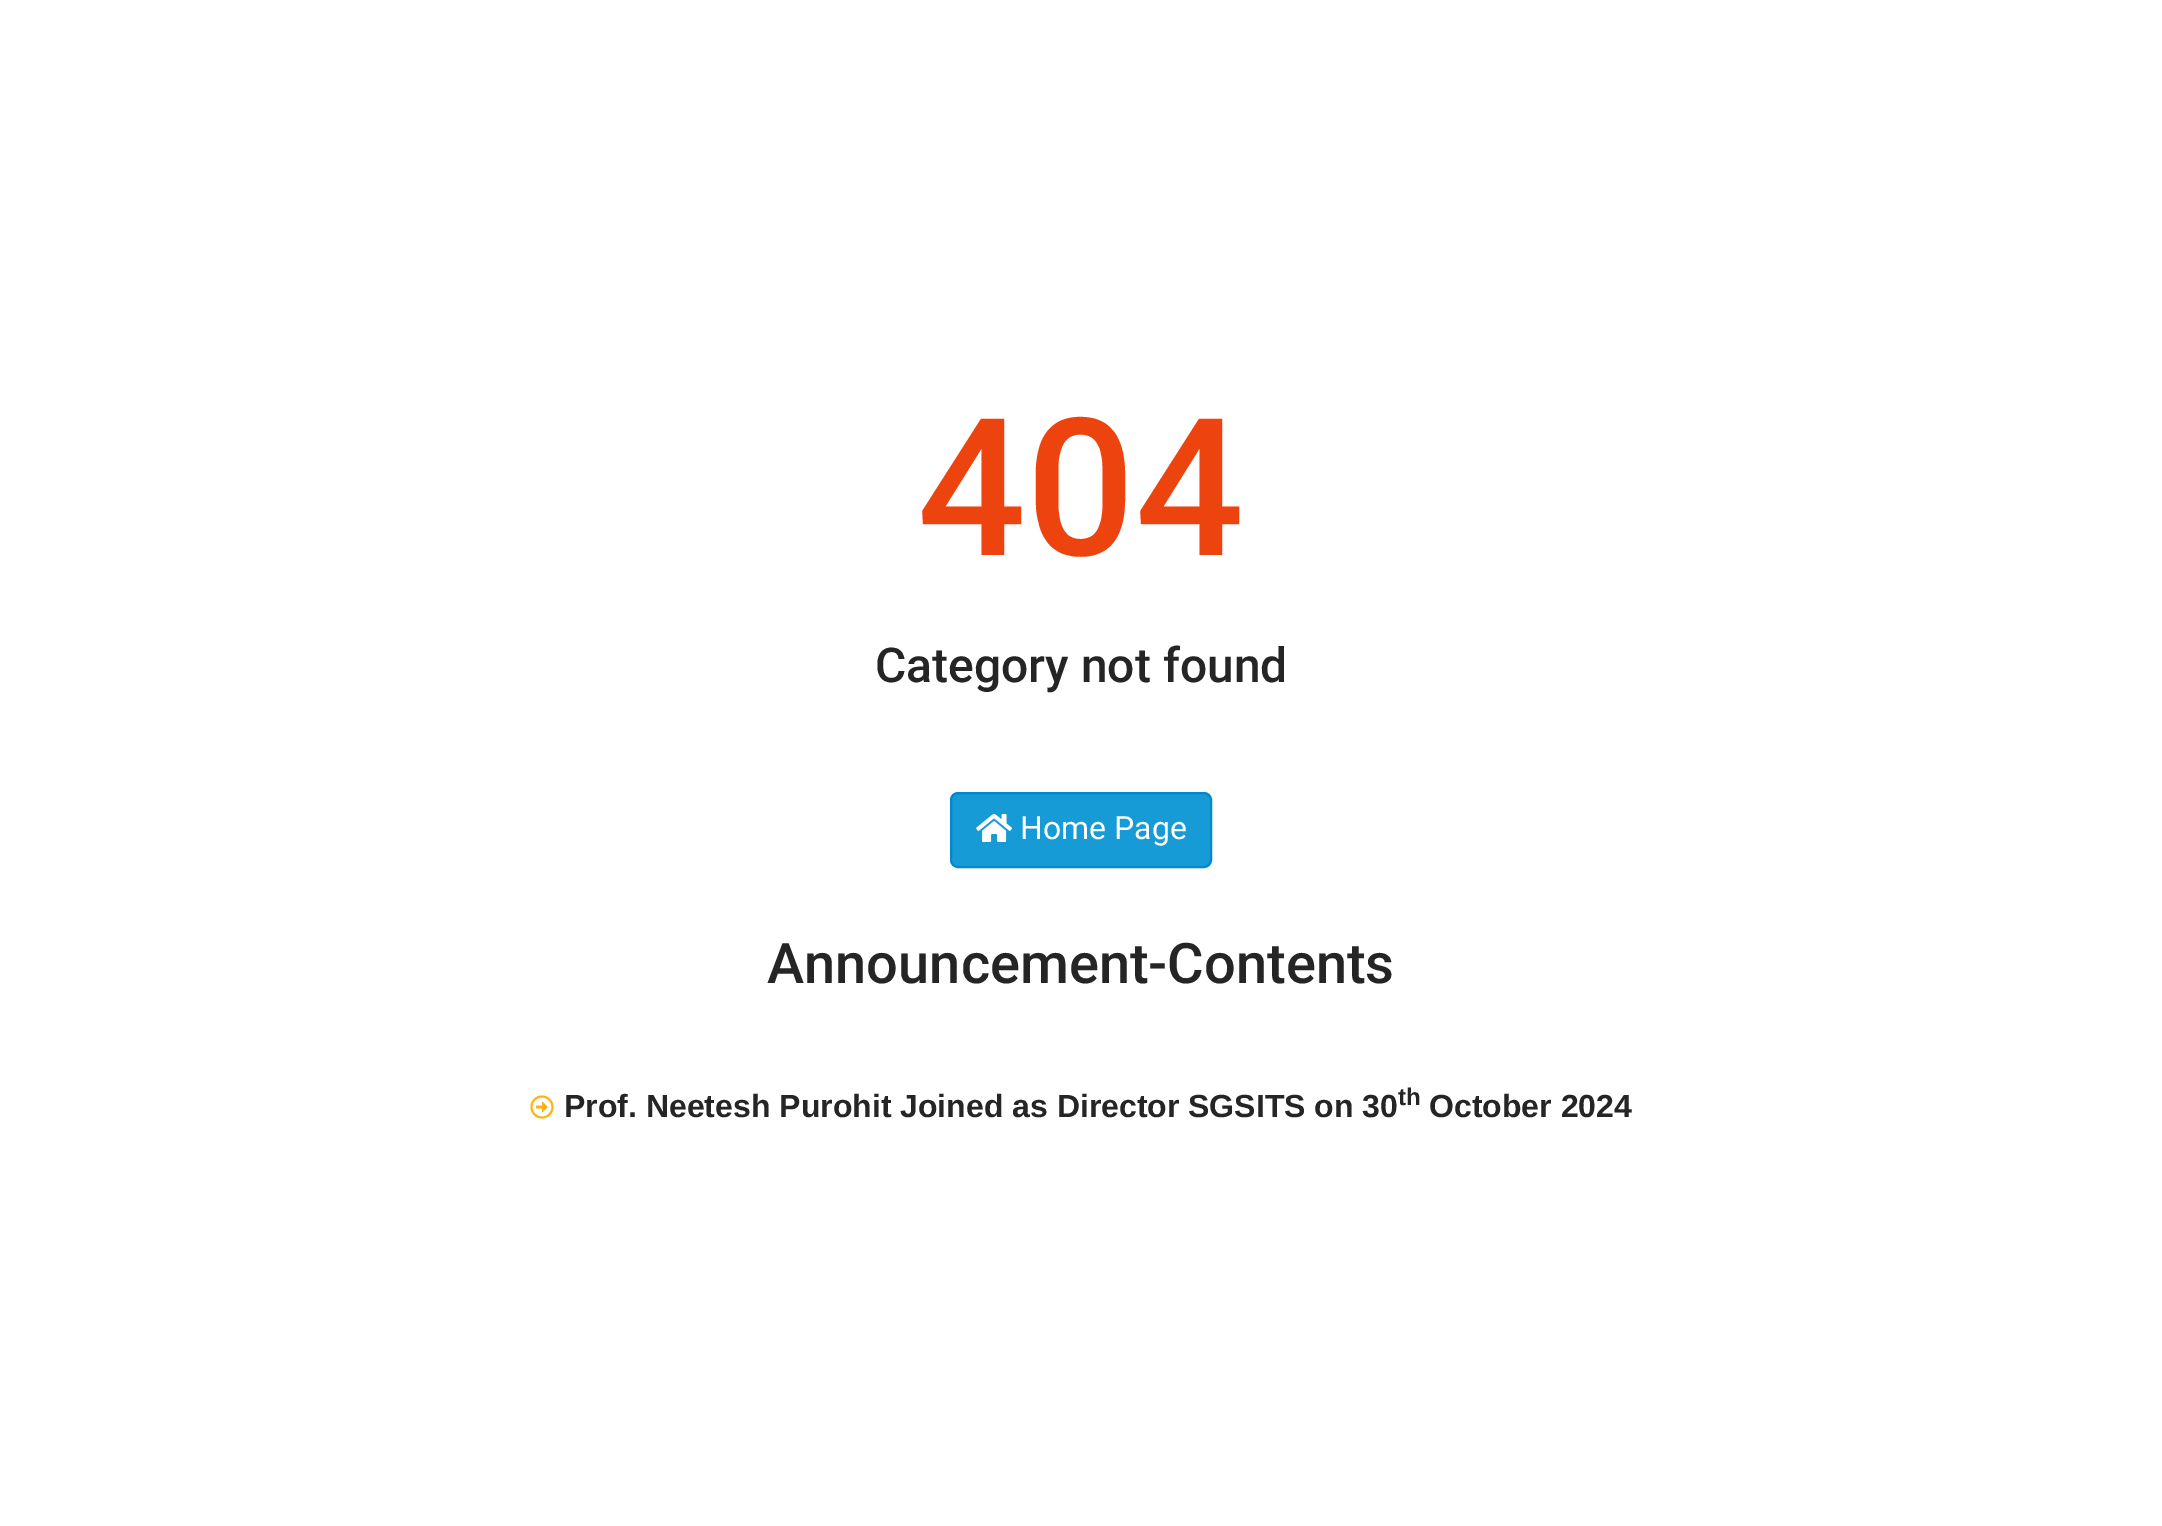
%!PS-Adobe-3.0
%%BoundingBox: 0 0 2162 1526
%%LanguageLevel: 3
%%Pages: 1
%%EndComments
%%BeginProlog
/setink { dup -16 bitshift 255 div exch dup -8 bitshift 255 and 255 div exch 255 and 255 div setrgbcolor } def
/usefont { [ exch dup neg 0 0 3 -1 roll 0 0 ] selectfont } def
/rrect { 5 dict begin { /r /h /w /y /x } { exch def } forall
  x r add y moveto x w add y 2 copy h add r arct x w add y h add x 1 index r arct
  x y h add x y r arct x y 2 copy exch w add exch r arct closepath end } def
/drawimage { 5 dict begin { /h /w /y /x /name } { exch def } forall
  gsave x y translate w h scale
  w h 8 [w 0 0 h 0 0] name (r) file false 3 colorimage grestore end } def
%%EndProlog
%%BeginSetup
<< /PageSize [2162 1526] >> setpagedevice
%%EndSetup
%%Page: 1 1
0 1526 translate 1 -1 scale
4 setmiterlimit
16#FFFFFF setink
0 0 2162 1526 rectfill
/Roboto-Medium 192 usefont
16#EC430F setink
917 555 moveto (404) show
/Roboto-Medium 48 usefont
16#252525 setink
875 682 moveto (Category not found) show
16#169BD6 setink
951 793 260 74 7 rrect gsave fill grestore
16#0288D1 setink
2 setlinewidth
stroke
(img1.raw) 976 814 36 28 drawimage
/Roboto-Regular 32 usefont
16#FFFFFF setink
1020 839 moveto (Home Page) show
/Roboto-Medium 56 usefont
16#252525 setink
767 983 moveto (Announcement-Contents) show
(img2.raw) 530 1095 24 24 drawimage
/LiberationSans-Bold 32 usefont
564 1117 moveto (Prof. Neetesh Purohit Joined as Director SGSITS on 30) show
/LiberationSans-Bold 24 usefont
1398 1105 moveto (th) show
/LiberationSans-Bold 32 usefont
1429 1117 moveto (October 2024) show
showpage
%%EOF
